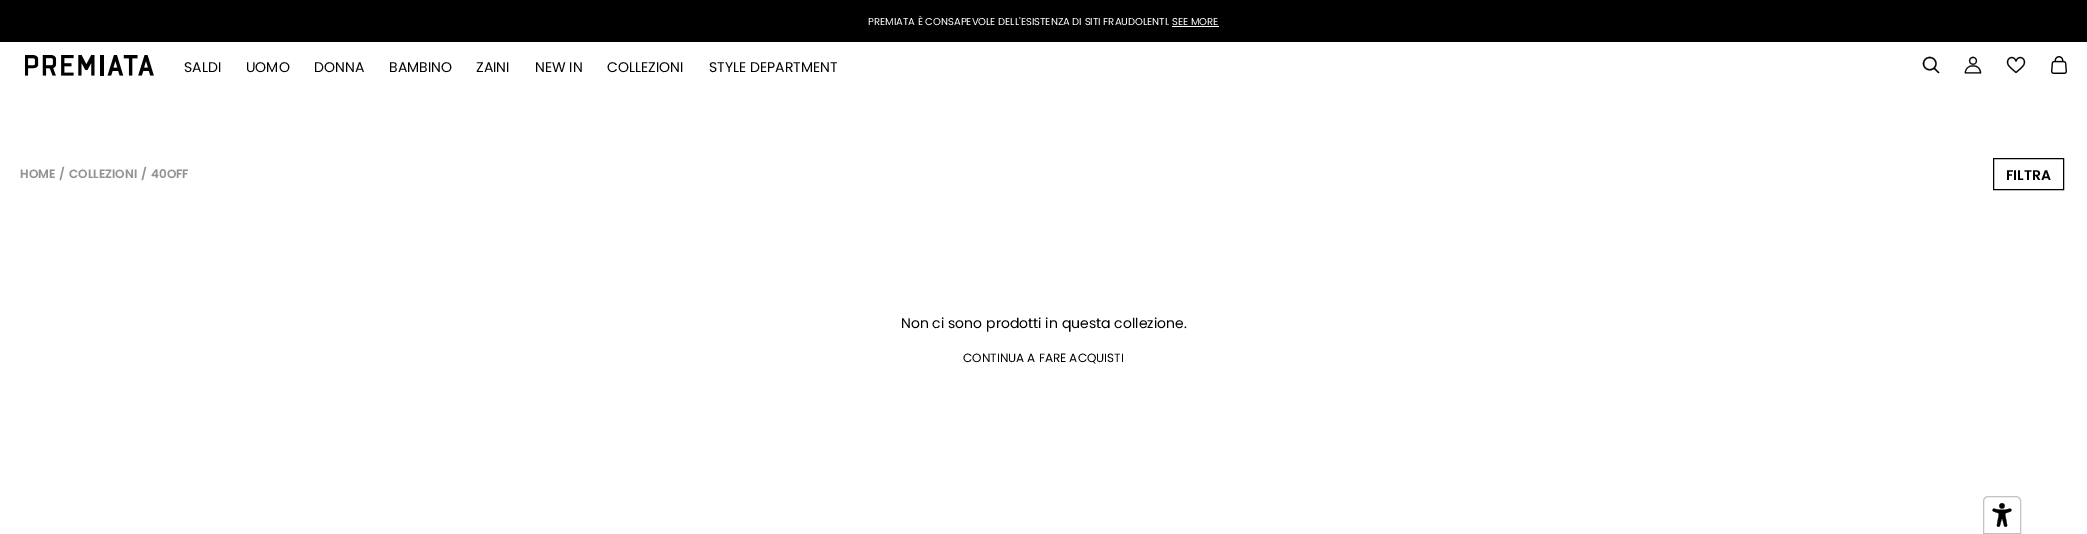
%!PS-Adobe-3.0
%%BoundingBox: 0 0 2087 534
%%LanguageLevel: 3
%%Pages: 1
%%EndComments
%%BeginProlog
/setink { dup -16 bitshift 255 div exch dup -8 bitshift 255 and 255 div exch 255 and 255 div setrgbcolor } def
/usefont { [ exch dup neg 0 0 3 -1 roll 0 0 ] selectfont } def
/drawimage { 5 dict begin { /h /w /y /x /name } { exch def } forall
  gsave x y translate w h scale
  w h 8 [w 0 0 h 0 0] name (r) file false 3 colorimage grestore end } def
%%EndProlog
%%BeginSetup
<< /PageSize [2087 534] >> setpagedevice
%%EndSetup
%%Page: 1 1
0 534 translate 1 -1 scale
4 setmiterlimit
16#FFFFFF setink
0 0 2087 534 rectfill
16#000000 setink
0 0 2087 42 rectfill
/Poppins-Regular 10 usefont
16#FFFFFF setink
868 25 moveto (PREMIATA È CONSAPEVOLE DELL'ESISTENZA DI SITI FRAUDOLENTI. SEE MORE) show
1172 26 47 1 rectfill
(img1.raw) 25 55 129 21 drawimage
/Poppins-Regular 14 usefont
16#000000 setink
[
    [(SALDI) 184 72]
    [(UOMO) 246 72]
    [(DONNA) 314 72]
    [(BAMBINO) 389 72]
    [(ZAINI) 476 72]
    [(NEW IN) 535 72]
    [(COLLEZIONI) 607 72]
    [(STYLE DEPARTMENT) 709 72]
] { aload pop moveto show } forall
(img2.raw) 1922 56 18 18 drawimage
(img3.raw) 1964 56 18 18 drawimage
(img4.raw) 2006 56 20 18 drawimage
(img5.raw) 2051 56 16 18 drawimage
/Poppins-SemiBold 12 usefont
16#929292 setink
[
    [(HOME) 20 178]
    [(/) 59 178]
    [(COLLEZIONI) 69 178]
    [(/) 141 178]
    [(40OFF) 151 178]
] { aload pop moveto show } forall
16#000000 setink
1993.5 158.5 70 31 rectstroke
/Poppins-SemiBold 14 usefont
2006 180 moveto (FILTRA) show
/Poppins-Regular 14 usefont
901 328 moveto (Non ci sono prodotti in questa collezione.) show
/Poppins-Regular 12 usefont
963 362 moveto (CONTINUA A FARE ACQUISTI) show
(img6.raw) 1992 503 20 24 drawimage
16#C2C2C2 setink
1988 496.5 moveto 2016 496.5 lineto 2018.5 496.5 2020.5 498.5 2020.5 501 curveto 2020.5 533.5 lineto 1983.5 533.5 lineto 1983.5 501 lineto 1983.5 498.5 1985.5 496.5 1988 496.5 curveto closepath stroke
showpage
%%EOF
